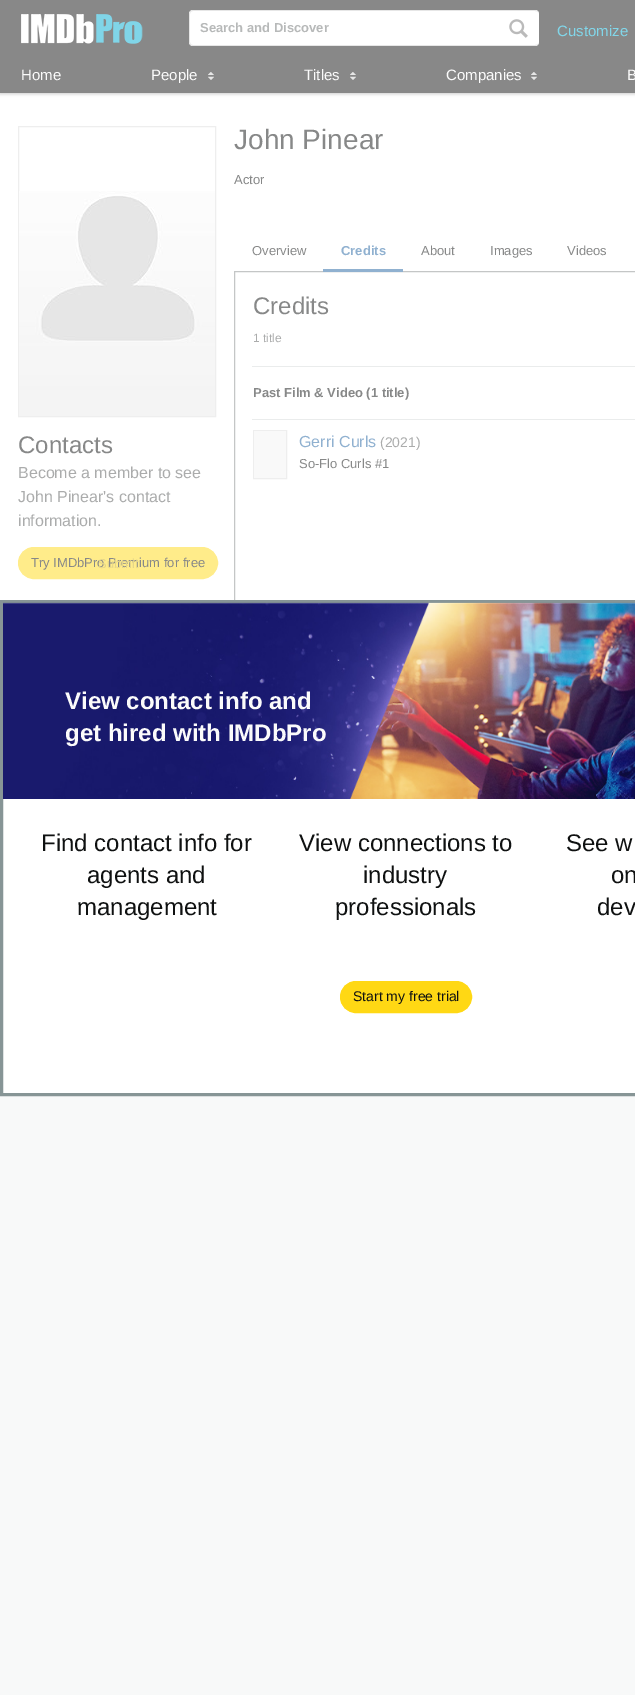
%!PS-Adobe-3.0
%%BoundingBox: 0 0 635 1695
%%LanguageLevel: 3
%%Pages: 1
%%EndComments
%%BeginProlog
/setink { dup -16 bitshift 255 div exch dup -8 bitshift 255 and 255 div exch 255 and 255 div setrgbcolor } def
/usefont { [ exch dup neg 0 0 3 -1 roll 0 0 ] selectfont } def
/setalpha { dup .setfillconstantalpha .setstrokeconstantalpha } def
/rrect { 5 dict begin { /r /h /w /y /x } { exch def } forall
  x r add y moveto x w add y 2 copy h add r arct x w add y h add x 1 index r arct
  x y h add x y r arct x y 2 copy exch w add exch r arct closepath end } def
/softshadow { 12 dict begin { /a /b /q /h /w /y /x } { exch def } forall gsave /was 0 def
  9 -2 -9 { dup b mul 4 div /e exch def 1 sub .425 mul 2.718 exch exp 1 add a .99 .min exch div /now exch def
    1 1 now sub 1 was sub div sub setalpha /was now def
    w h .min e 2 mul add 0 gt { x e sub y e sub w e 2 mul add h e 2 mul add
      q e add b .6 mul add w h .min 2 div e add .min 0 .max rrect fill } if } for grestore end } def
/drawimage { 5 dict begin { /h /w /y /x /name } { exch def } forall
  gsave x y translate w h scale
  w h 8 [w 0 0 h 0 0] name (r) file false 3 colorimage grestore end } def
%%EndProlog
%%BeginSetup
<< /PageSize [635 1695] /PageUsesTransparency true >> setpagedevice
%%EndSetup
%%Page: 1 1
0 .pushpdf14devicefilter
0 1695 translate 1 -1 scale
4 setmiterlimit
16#F8F9F9 setink
0 0 635 1695 rectfill
16#FFFFFF setink
0 93 635 507 rectfill
16#CCCCCC setink
0 57 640 37 0 1.5 1 softshadow
16#888888 setink
0 0 635 93 rectfill
(img1.raw) 21 14 122 30 drawimage
16#FFFFFF setink
189 10 350 36 4 rrect fill
16#E6E6E6 setink
193 10 moveto 535 10 lineto 537 10 539 12 539 14 curveto 539 42 lineto 539 44 537 46 535 46 curveto 193 46 lineto 191 46 189 44 189 42 curveto 189 14 lineto 189 12 191 10 193 10 curveto closepath 193 11 moveto 535 11 lineto 537 11 539 12 539 14 curveto 539 42 lineto 539 44 537 45 535 45 curveto 193 45 lineto 191 45 190 44 190 42 curveto 190 14 lineto 190 12 191 11 193 11 curveto closepath eofill
/LiberationSans-Bold 13 usefont
16#B7B9B9 setink
200 32 moveto (Search and Discover) show
(img2.raw) 509 19 19 19 drawimage
/LiberationSans-Regular 15 usefont
16#81D6E9 setink
557 36 moveto (Customize) show
16#FBFBFB setink
21 80 moveto (Home) show
151 80 moveto (People) show
(img3.raw) 208 72 6 8 drawimage
304 80 moveto (Titles) show
(img3.raw) 350 72 6 8 drawimage
446 80 moveto (Companies) show
(img3.raw) 531 72 6 8 drawimage
627 80 moveto (B) show
/LiberationSans-Regular 28 usefont
16#878888 setink
234 149 moveto (John Pinear) show
/LiberationSans-Regular 13 usefont
234 184 moveto (Actor) show
252 255 moveto (Overview) show
16#C4C6C6 setink
234.5 271.5 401 351 rectstroke
16#90B1D0 setink
323 269 80 3 rectfill
/LiberationSans-Bold 13 usefont
341 255 moveto (Credits) show
/LiberationSans-Regular 13 usefont
16#878888 setink
[
    [(About) 421 255]
    [(Images) 490 255]
    [(Videos) 567 255]
] { aload pop moveto show } forall
/LiberationSans-Regular 24 usefont
253 314 moveto (Credits) show
/LiberationSans-Regular 12 usefont
16#ABACAC setink
253 342 moveto (1 title) show
16#EAECEC setink
252 366 383 1 rectfill
/LiberationSans-Bold 13 usefont
16#878888 setink
253 397 moveto (Past Film & Video \(1 title\)) show
16#EAECEC setink
252 419 383 1 rectfill
16#EEEEEE setink
253.5 430.5 33 48 rectstroke
16#F9F9F9 setink
254 431 32 47 rectfill
/LiberationSans-Regular 16 usefont
16#90B1D0 setink
299 447 moveto (Gerri Curls) show
/LiberationSans-Regular 14 usefont
16#ABACAC setink
380 447 moveto (\(2021\)) show
/LiberationSans-Regular 13 usefont
16#878888 setink
299 468 moveto (So-Flo Curls #1) show
16#EEEEEE setink
18.5 126.5 197 290 rectstroke
(img4.raw) 19 191 196 225 drawimage
/LiberationSans-Regular 24 usefont
16#878888 setink
18 453 moveto (Contacts) show
/LiberationSans-Regular 16 usefont
16#ABACAC setink
[
    [(Become a member to see) 18 478]
    [(John Pinear's contact) 18 502]
    [(information.) 18 526]
] { aload pop moveto show } forall
16#FFEC8A setink
18.5 547.5 199 31 15.5 rrect gsave fill grestore
stroke
/LiberationSans-Regular 13 usefont
16#878888 setink
31 567 moveto (Try IMDbPro Premium for free) show
16#E4D589 setink
98 568 moveto (Submit) show
16#FFFFFF setink
1.5 601.5 moveto 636.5 601.5 lineto 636.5 1094.5 lineto 1.5 1094.5 lineto closepath gsave fill grestore
16#879596 setink
3 setlinewidth
stroke
(img5.raw) 3 602 632 197 drawimage
/LiberationSans-Bold 24 usefont
16#FBFBFB setink
65 709 moveto (View contact info and) show
65 741 moveto (get hired with IMDbPro) show
/LiberationSans-Regular 24 usefont
16#0F1111 setink
[
    [(Find contact info for) 41 851]
    [(agents and) 87 883]
    [(management) 77 915]
    [(View connections to) 299 851]
    [(industry) 363 883]
    [(professionals) 335 915]
    [(See w) 566 851]
    [(on) 611 883]
    [(dev) 597 915]
] { aload pop moveto show } forall
16#FFD814 setink
340.5 981.5 131 31 15.5 rrect gsave fill grestore
1 setlinewidth
stroke
/LiberationSans-Regular 14 usefont
16#0F1111 setink
353 1001 moveto (Start my free trial) show
.poppdf14devicefilter showpage
%%EOF
